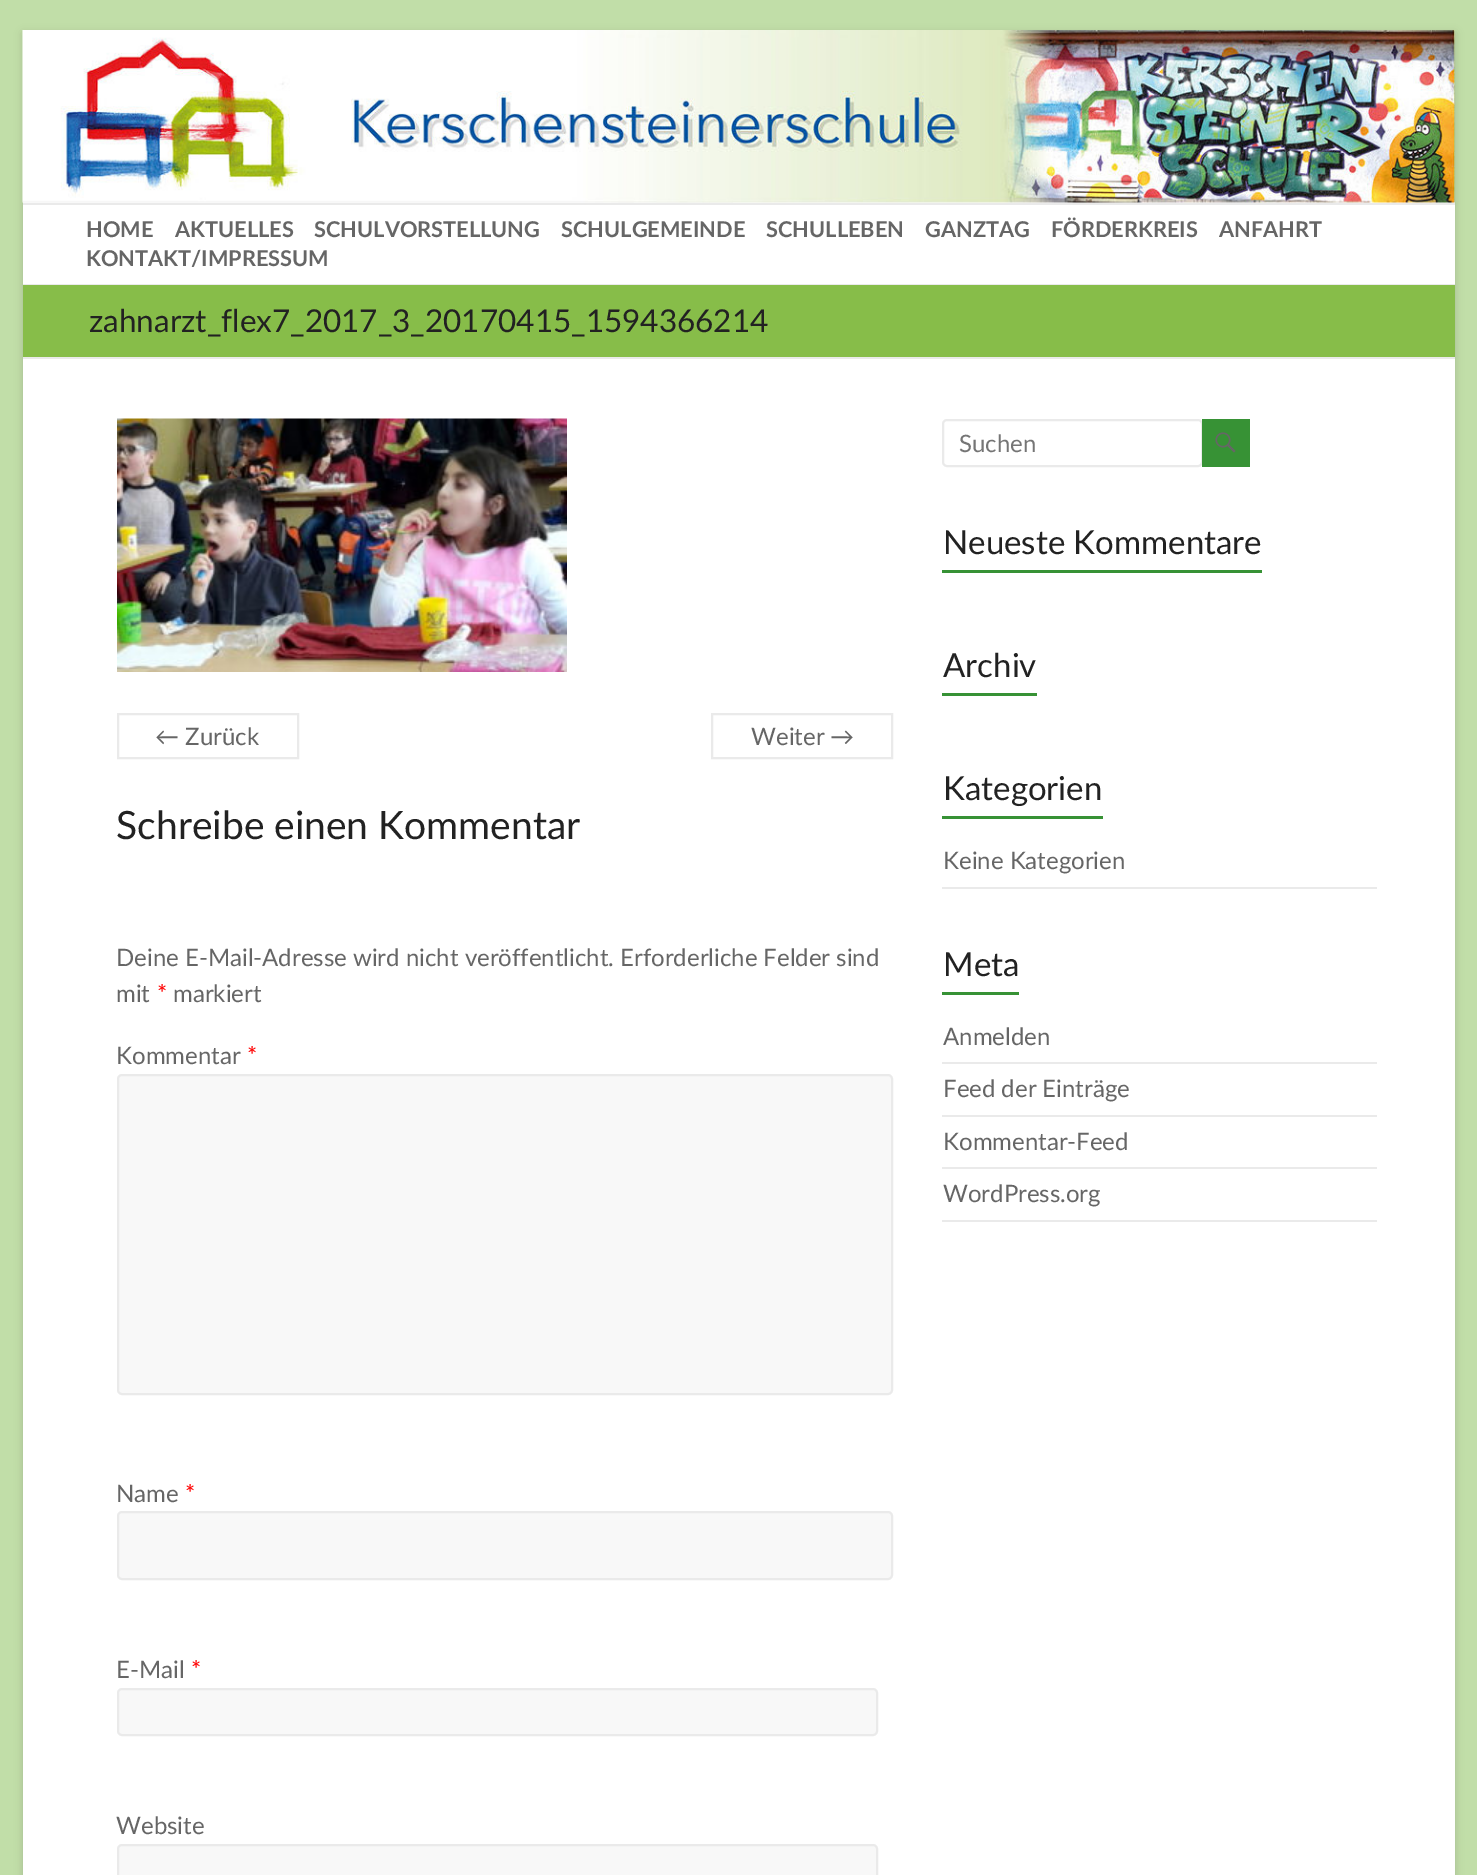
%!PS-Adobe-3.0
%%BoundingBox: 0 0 1477 1875
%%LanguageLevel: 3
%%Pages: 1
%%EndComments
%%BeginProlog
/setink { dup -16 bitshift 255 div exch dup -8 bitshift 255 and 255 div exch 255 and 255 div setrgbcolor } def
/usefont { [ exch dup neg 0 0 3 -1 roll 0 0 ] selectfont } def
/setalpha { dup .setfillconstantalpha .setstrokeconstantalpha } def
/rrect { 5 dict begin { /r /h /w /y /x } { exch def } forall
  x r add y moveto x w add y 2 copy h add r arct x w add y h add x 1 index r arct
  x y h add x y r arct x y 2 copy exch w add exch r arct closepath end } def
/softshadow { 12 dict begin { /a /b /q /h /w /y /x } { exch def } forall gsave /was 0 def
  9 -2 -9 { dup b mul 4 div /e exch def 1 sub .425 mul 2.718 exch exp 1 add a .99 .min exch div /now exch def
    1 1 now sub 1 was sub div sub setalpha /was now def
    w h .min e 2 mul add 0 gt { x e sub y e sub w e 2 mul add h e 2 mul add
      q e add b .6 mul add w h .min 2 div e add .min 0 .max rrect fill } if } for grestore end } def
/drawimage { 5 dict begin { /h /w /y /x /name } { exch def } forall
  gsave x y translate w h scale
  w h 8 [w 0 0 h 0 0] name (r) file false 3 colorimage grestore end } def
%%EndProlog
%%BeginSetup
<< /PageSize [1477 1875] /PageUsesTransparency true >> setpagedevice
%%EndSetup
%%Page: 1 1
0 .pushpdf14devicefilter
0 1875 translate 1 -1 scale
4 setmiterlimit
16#C1DEA8 setink
0 0 1477 1875 rectfill
16#646464 setink
23 33 1432 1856 0 4.5 0.3 softshadow
16#FFFFFF setink
23 202 1432 1673 rectfill
(img1.raw) 22 30 1433 173 drawimage
16#EAEAEA setink
23 203 1432 2 rectfill
23 284 1432 1 rectfill
/Lato-Bold 21.75 usefont
16#666666 setink
[
    [(HOME) 86 237]
    [(AKTUELLES) 175 237]
    [(SCHULVORSTELLUNG) 314 237]
    [(SCHULGEMEINDE) 561 237]
    [(SCHULLEBEN) 766 237]
    [(GANZTAG) 925 237]
    [(FÖRDERKREIS) 1051 237]
    [(ANFAHRT) 1219 237]
    [(KONTAKT/IMPRESSUM) 86 266]
] { aload pop moveto show } forall
16#87BD49 setink
23 285 1432 72 rectfill
16#EAEAEA setink
23 357 1432 2 rectfill
/Lato-Regular 31.5 usefont
16#222222 setink
89 332 moveto (zahnarzt_flex7_2017_3_20170415_1594366214) show
(img2.raw) 117 418 450 254 drawimage
16#EAEAEA setink
2 setlinewidth
118 714 180 44 rectstroke
/Lato-Regular 24 usefont
16#666666 setink
155 745 moveto (← Zurück) show
16#EAEAEA setink
712 714 180 44 rectstroke
16#666666 setink
751 745 moveto (Weiter →) show
/Lato-Regular 39 usefont
16#222222 setink
116 839 moveto (Schreibe einen Kommentar) show
/Lato-Regular 24 usefont
16#666666 setink
116 966 moveto (Deine E-Mail-Adresse wird nicht veröffentlicht. Erforderliche Felder sind) show
116 1002 moveto (mit) show
16#FF0000 setink
157 1002 moveto (*) show
16#666666 setink
173 1002 moveto (markiert) show
116 1064 moveto (Kommentar) show
16#FF0000 setink
247 1064 moveto (*) show
16#F8F8F8 setink
118 1075 774 319 4 rrect gsave fill grestore
16#EAEAEA setink
stroke
16#666666 setink
116 1502 moveto (Name) show
16#FF0000 setink
185 1502 moveto (*) show
16#F8F8F8 setink
118 1512 774 67 4 rrect gsave fill grestore
16#EAEAEA setink
stroke
16#666666 setink
116 1678 moveto (E-Mail) show
16#FF0000 setink
191 1678 moveto (*) show
16#F8F8F8 setink
118 1689 759 46 4 rrect gsave fill grestore
16#EAEAEA setink
stroke
16#666666 setink
116 1834 moveto (Website) show
16#F8F8F8 setink
118 1845 759 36 4 rrect gsave fill grestore
16#EAEAEA setink
stroke
943 420 259 46 4 rrect stroke
16#757575 setink
959 452 moveto (Suchen) show
16#379235 setink
1202 419 48 48 rectfill
(img3.raw) 1215 432 21 21 drawimage
/Lato-Regular 33 usefont
16#222222 setink
943 554 moveto (Neueste Kommentare) show
16#379235 setink
942 570 320 3 rectfill
16#222222 setink
943 677 moveto (Archiv) show
16#379235 setink
942 693 95 3 rectfill
16#222222 setink
943 800 moveto (Kategorien) show
16#379235 setink
942 816 161 3 rectfill
16#EAEAEA setink
942 887 435 2 rectfill
/Lato-Regular 24 usefont
16#666666 setink
943 869 moveto (Keine Kategorien) show
/Lato-Regular 33 usefont
16#222222 setink
943 976 moveto (Meta) show
16#379235 setink
942 992 77 3 rectfill
16#EAEAEA setink
942 1062 435 2 rectfill
/Lato-Regular 24 usefont
16#666666 setink
943 1045 moveto (Anmelden) show
16#EAEAEA setink
942 1115 435 2 rectfill
16#666666 setink
943 1097 moveto (Feed der Einträge) show
16#EAEAEA setink
942 1167 435 2 rectfill
16#666666 setink
943 1150 moveto (Kommentar-Feed) show
16#EAEAEA setink
942 1220 435 2 rectfill
16#666666 setink
943 1202 moveto (WordPress.org) show
.poppdf14devicefilter showpage
%%EOF
